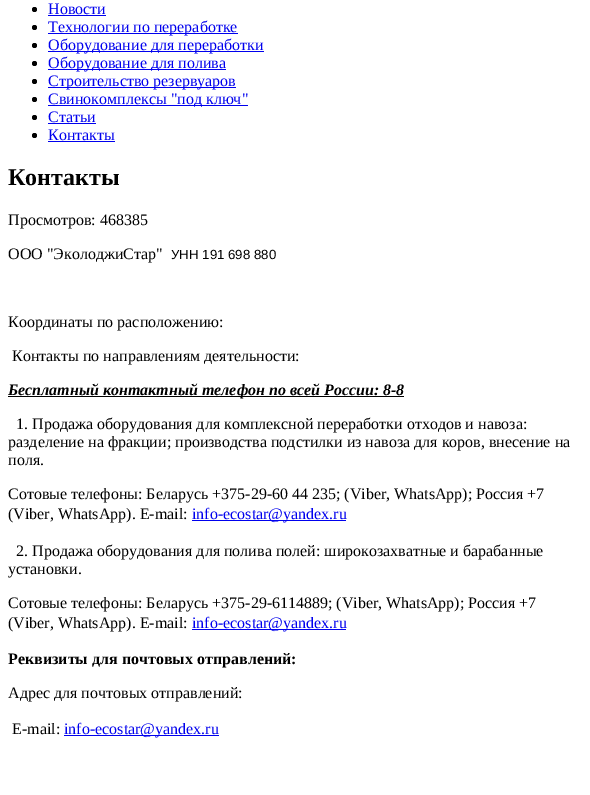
%!PS-Adobe-3.0
%%BoundingBox: 0 0 590 795
%%LanguageLevel: 3
%%Pages: 1
%%EndComments
%%BeginProlog
/setink { dup -16 bitshift 255 div exch dup -8 bitshift 255 and 255 div exch 255 and 255 div setrgbcolor } def
/usefont { [ exch dup neg 0 0 3 -1 roll 0 0 ] selectfont } def
/disc { newpath 0 360 arc closepath } def
%%EndProlog
%%BeginSetup
<< /PageSize [590 795] >> setpagedevice
%%EndSetup
%%Page: 1 1
0 795 translate 1 -1 scale
4 setmiterlimit
16#FFFFFF setink
0 0 590 795 rectfill
16#000000 setink
34.5 9.5 2.5 disc fill
/LiberationSerif-Regular 16 usefont
16#0000EE setink
48 14 moveto (Новости) show
48 15 58 1 rectfill
16#000000 setink
34.5 27.5 2.5 disc fill
16#0000EE setink
48 33 190 1 rectfill
48 32 moveto (Технологии по переработке) show
16#000000 setink
34.5 45.5 2.5 disc fill
16#0000EE setink
48 51 216 1 rectfill
48 50 moveto (Оборудование для переработки) show
16#000000 setink
34.5 63.5 2.5 disc fill
16#0000EE setink
48 69 178 1 rectfill
48 68 moveto (Оборудование для полива) show
16#000000 setink
34.5 81.5 2.5 disc fill
16#0000EE setink
48 87 188 1 rectfill
48 86 moveto (Строительство резервуаров) show
16#000000 setink
34.5 99.5 2.5 disc fill
16#0000EE setink
48 105 200 1 rectfill
48 104 moveto (Свинокомплексы "под ключ") show
16#000000 setink
34.5 117.5 2.5 disc fill
16#0000EE setink
48 122 moveto (Статьи) show
48 123 48 1 rectfill
16#000000 setink
34.5 135.5 2.5 disc fill
16#0000EE setink
48 140 moveto (Контакты) show
48 141 67 1 rectfill
/LiberationSerif-Bold 24 usefont
16#000000 setink
8 185 moveto (Контакты) show
/LiberationSerif-Regular 16 usefont
8 225 moveto (Просмотров: 468385) show
8 259 moveto (ООО "ЭколоджиСтар") show
/LiberationSans-Regular 13.25 usefont
171 259 moveto (УНН 191 698 880) show
/LiberationSerif-Regular 16 usefont
8 327 moveto (Координаты по расположению:) show
12 361 moveto (Контакты по направлениям деятельности:) show
8 396 396 1 rectfill
/LiberationSerif-BoldItalic 16 usefont
8 395 moveto (Бесплатный контактный телефон по всей России: 8-8) show
/LiberationSerif-Regular 16 usefont
[
    [(1. Продажа оборудования для комплексной переработки отходов и навоза:) 16 429]
    [(разделение на фракции; производства подстилки из навоза для коров, внесение на) 8 447]
    [(поля.) 8 465]
    [(Сотовые телефоны: Беларусь +375-29-60 44 235; \(Viber, WhatsApp\); Россия +7) 8 499]
    [(\(Viber, WhatsApp\). E-mail:) 8 519]
] { aload pop moveto show } forall
16#0000EE setink
192 520 154 1 rectfill
192 519 moveto (info-ecostar@yandex.ru) show
16#000000 setink
[
    [(2. Продажа оборудования для полива полей: широкозахватные и барабанные) 16 556]
    [(установки.) 8 574]
    [(Сотовые телефоны: Беларусь +375-29-6114889; \(Viber, WhatsApp\); Россия +7) 8 608]
    [(\(Viber, WhatsApp\). E-mail:) 8 628]
] { aload pop moveto show } forall
16#0000EE setink
192 629 154 1 rectfill
192 628 moveto (info-ecostar@yandex.ru) show
/LiberationSerif-Bold 16 usefont
16#000000 setink
8 664 moveto (Реквизиты для почтовых отправлений:) show
/LiberationSerif-Regular 16 usefont
8 698 moveto (Адрес для почтовых отправлений:) show
12 734 moveto (E-mail:) show
16#0000EE setink
64 735 155 1 rectfill
64 734 moveto (info-ecostar@yandex.ru) show
showpage
%%EOF
